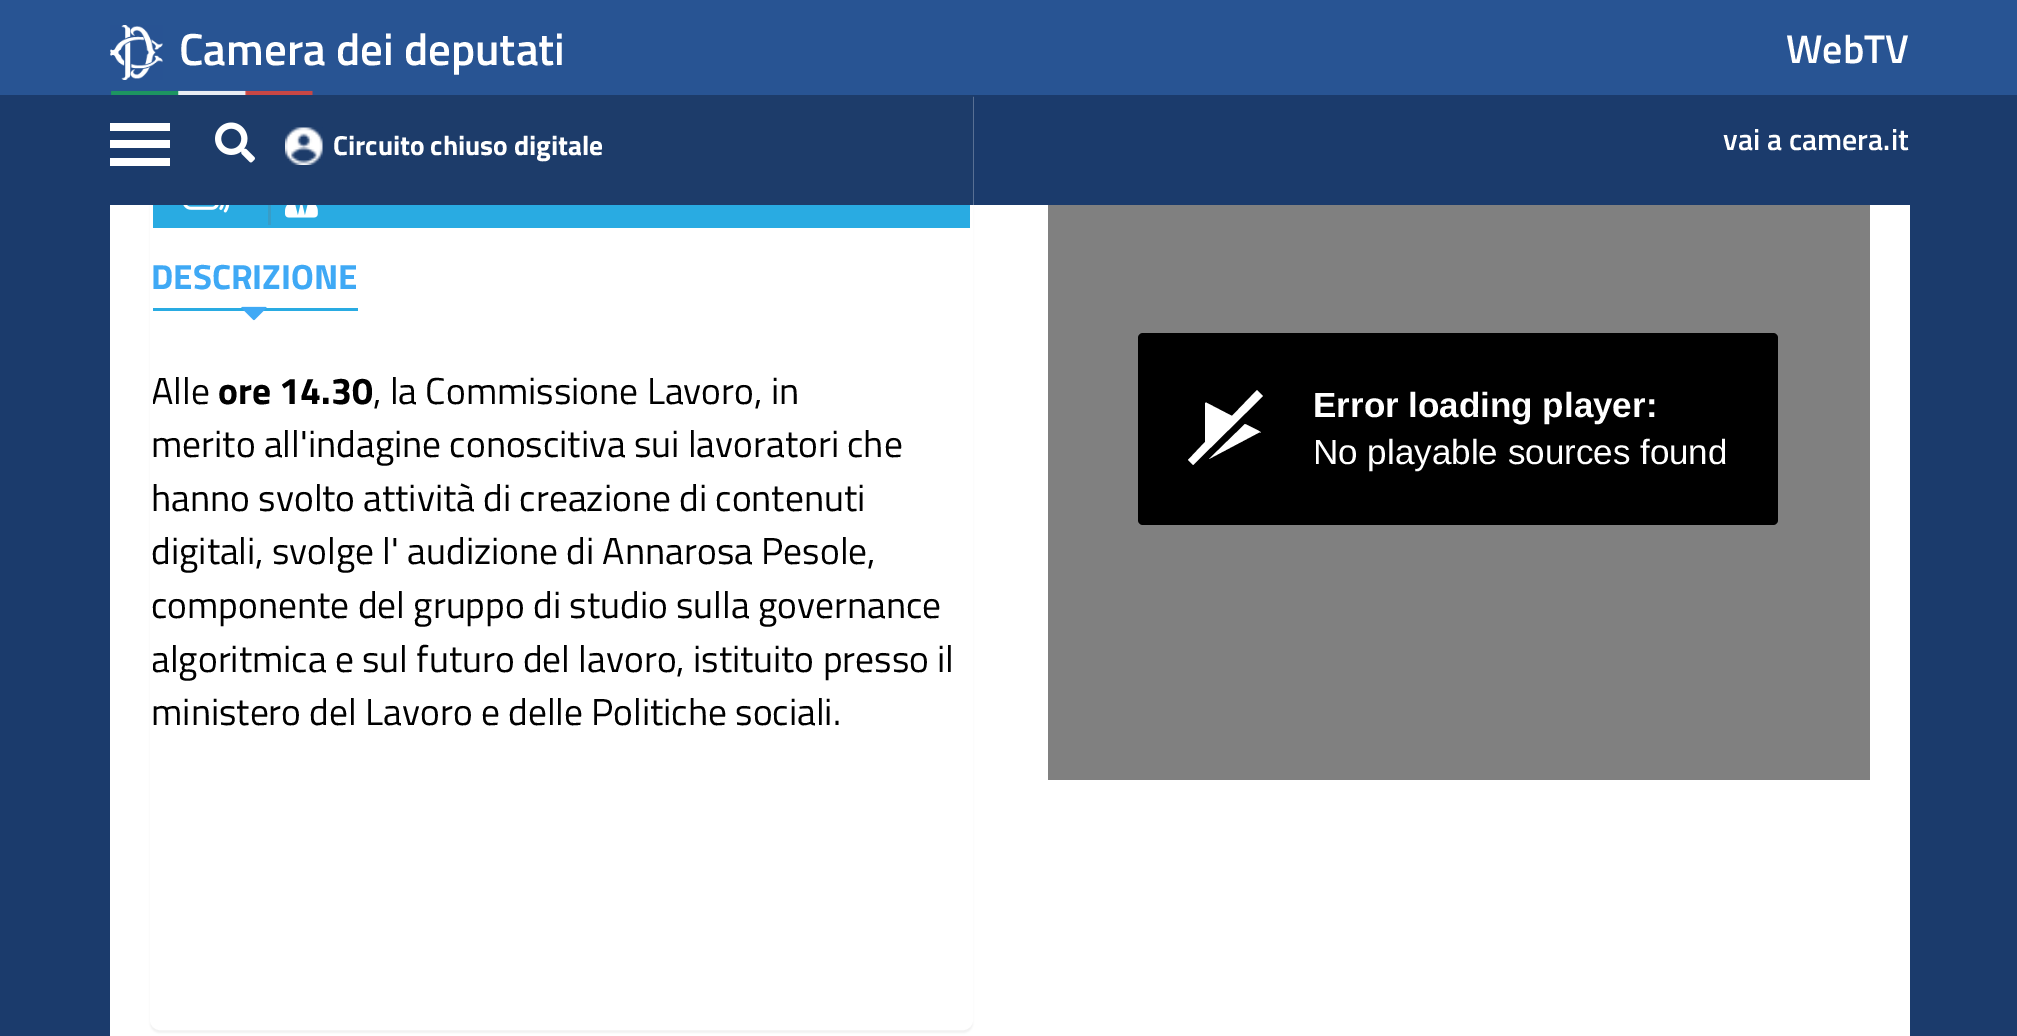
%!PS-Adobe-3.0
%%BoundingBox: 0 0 2017 1036
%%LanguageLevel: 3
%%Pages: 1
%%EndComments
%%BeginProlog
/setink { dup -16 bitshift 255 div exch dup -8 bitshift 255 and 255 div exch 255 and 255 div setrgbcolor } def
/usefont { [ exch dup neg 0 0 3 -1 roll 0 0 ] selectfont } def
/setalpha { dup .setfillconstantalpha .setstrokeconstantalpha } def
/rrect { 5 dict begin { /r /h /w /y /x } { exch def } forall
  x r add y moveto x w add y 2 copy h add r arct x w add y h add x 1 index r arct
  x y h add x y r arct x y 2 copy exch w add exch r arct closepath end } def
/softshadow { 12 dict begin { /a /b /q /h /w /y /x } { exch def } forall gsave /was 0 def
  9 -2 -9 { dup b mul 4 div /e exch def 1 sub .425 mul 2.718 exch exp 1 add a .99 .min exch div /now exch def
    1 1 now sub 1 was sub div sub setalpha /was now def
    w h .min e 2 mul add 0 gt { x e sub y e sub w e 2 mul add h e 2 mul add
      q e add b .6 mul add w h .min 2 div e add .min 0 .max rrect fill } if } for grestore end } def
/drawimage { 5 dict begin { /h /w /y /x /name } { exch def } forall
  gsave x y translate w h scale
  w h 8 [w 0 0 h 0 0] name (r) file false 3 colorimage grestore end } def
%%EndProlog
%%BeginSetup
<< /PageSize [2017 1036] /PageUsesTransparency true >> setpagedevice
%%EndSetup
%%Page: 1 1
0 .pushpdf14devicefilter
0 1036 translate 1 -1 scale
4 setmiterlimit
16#1B3B6C setink
0 0 2017 1036 rectfill
16#FFFFFF setink
110 205 1800 831 rectfill
16#000000 setink
150 90 823 943 10 1 0.05 softshadow
16#FFFFFF setink
151.5 89.5 820 939 8.5 rrect gsave fill grestore
3 setlinewidth
stroke
16#285493 setink
0 0 2017 95 rectfill
(img1.raw) 110 25 203 70 drawimage
/TitilliumWeb-SemiBold 45 usefont
16#FFFFFF setink
179 65 moveto (Camera dei deputati) show
/TitilliumWeb-SemiBold 40 usefont
1786 63 moveto (WebTV) show
[
    [150 95 823 110 16#1D3C6A]
    [110 123 60 8 16#FFFFFF]
    [110 140 60 8 16#FFFFFF]
    [110 158 60 8 16#FFFFFF]
] { aload pop setink rectfill } forall
(img2.raw) 215 122 40 41 drawimage
(img3.raw) 285 127 38 38 drawimage
/TitilliumWeb-Bold 27.5 usefont
333 155 moveto (Circuito chiuso digitale) show
/TitilliumWeb-SemiBold 30 usefont
1723 150 moveto (vai a camera.it) show
16#29ABE2 setink
153 205 817 23 rectfill
(img4.raw) 183 205 47 8 drawimage
16#389DC7 setink
268 205 3 20 rectfill
(img5.raw) 285 205 33 13 drawimage
16#29ABE2 setink
153 308 205 3 rectfill
/TitilliumWeb-Bold 35 usefont
16#3FA9F5 setink
151 289 moveto (DESCRIZIONE) show
(img6.raw) 241 306 26 15 drawimage
gsave
153 365 817 625 rectclip
/TitilliumWeb-Regular 37.5 usefont
16#000000 setink
151 404 moveto (Alle) show
grestore
/TitilliumWeb-Bold 37.5 usefont
16#000000 setink
218 404 moveto (ore 14.30) show
/TitilliumWeb-Regular 37.5 usefont
[
    [(, la Commissione Lavoro, in) 373 404]
    [(merito all'indagine conoscitiva sui lavoratori che) 151 457]
    [(hanno svolto attività di creazione di contenuti) 151 511]
    [(digitali, svolge l' audizione di Annarosa Pesole,) 151 564]
    [(componente del gruppo di studio sulla governance) 151 618]
] { aload pop moveto show } forall
gsave
153 365 817 625 rectclip
151 672 moveto (algoritmica e sul futuro del lavoro, istituito presso il) show
grestore
151 725 moveto (ministero del Lavoro e delle Politiche sociali.) show
16#808080 setink
1048 205 822 575 rectfill
16#000000 setink
1138 333 640 192 5 rrect fill
16#FFFFFF setink
1260 432 moveto 1209 459 lineto 1245 424 lineto 1259 431 1262 432 1260 433 curveto closepath 1257 390 moveto 1232 416 lineto 1207 403 lineto 1206 402 1205 403 1205 404 curveto 1205 442 lineto 1188 460 lineto 1193 465 lineto 1263 396 lineto closepath fill
/LiberationSans-Bold 35 usefont
1313 417 moveto (Error loading player:) show
/LiberationSans-Regular 35 usefont
1313 464 moveto (No playable sources found) show
.poppdf14devicefilter showpage
%%EOF
